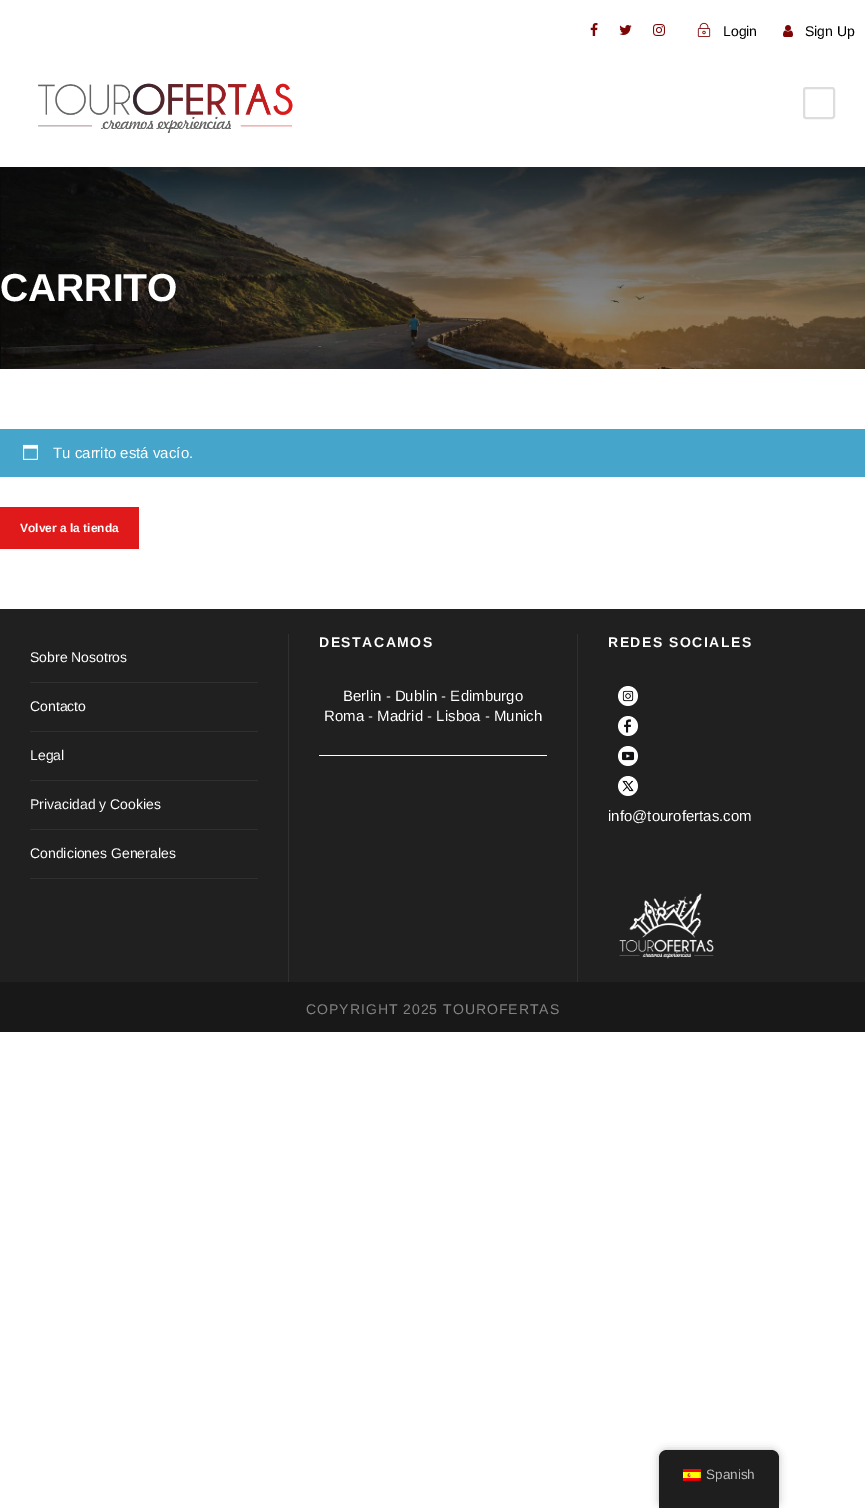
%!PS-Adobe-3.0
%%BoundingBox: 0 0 865 1508
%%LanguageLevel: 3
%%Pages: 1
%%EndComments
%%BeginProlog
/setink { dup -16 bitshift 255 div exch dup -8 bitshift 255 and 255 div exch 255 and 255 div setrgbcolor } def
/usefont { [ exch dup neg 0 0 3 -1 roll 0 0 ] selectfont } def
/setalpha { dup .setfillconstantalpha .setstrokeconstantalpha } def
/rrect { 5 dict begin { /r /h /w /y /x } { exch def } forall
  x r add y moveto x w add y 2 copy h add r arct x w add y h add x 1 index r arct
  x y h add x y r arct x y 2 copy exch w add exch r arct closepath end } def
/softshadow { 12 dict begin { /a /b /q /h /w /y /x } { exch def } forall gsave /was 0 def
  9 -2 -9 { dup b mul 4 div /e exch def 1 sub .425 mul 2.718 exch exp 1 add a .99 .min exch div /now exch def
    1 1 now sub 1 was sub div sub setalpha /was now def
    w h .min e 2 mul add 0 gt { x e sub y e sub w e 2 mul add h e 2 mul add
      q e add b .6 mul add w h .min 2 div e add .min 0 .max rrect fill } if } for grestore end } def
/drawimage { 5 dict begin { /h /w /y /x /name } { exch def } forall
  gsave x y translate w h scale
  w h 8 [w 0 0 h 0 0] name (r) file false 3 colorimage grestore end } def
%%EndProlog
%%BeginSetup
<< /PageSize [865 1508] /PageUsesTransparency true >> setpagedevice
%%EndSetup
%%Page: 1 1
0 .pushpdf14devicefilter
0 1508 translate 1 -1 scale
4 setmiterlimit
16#FFFFFF setink
0 0 865 1508 rectfill
(img1.raw) 590 23 8 13 drawimage
(img2.raw) 619 25 13 10 drawimage
(img3.raw) 653 24 12 12 drawimage
(img4.raw) 697 22 14 15 drawimage
/LiberationSans-Regular 14 usefont
16#000000 setink
723 36 moveto (Login) show
(img5.raw) 783 25 10 12 drawimage
805 36 moveto (Sign Up) show
(img6.raw) 38 83 255 50 drawimage
16#DDDDDD setink
2 setlinewidth
804 88 30 30 2 rrect stroke
(img7.raw) 0 167 865 202 drawimage
/LiberationSans-Bold 39 usefont
16#FFFFFF setink
0 301 moveto (CARRITO) show
16#46A5CA setink
0 429 865 48 rectfill
(img8.raw) 23 444 15 16 drawimage
/LiberationSans-Regular 15 usefont
16#FFFFFF setink
53 458 moveto (Tu carrito está vacío.) show
16#E01A1A setink
0 507 139 42 rectfill
/LiberationSans-Bold 12 usefont
16#FFFFFF setink
20 532 moveto (Volver a la tienda) show
16#202020 setink
0 609 865 373 rectfill
16#303030 setink
30 682 228 1 rectfill
/LiberationSans-Regular 14 usefont
16#FFFFFF setink
30 662 moveto (Sobre Nosotros) show
16#303030 setink
30 731 228 1 rectfill
16#FFFFFF setink
30 711 moveto (Contacto) show
16#303030 setink
30 780 228 1 rectfill
16#FFFFFF setink
30 760 moveto (Legal) show
16#303030 setink
30 829 228 1 rectfill
16#FFFFFF setink
30 809 moveto (Privacidad y Cookies) show
16#303030 setink
30 878 228 1 rectfill
16#FFFFFF setink
30 858 moveto (Condiciones Generales) show
16#303030 setink
288 634 1 348 rectfill
/LiberationSans-Bold 14 usefont
16#FFFFFF setink
319 647 moveto 1.5 0 (DESTACAMOS) ashow
319 755 228 1 rectfill
/LiberationSans-Regular 15 usefont
343 701 moveto (Berlin - Dublin - Edimburgo) show
324 721 moveto (Roma - Madrid - Lisboa - Munich) show
16#303030 setink
577 634 1 348 rectfill
/LiberationSans-Bold 14 usefont
16#FFFFFF setink
608 647 moveto 1.5 0 (REDES SOCIALES) ashow
(img9.raw) 618 686 20 20 drawimage
(img10.raw) 618 716 20 20 drawimage
(img11.raw) 618 746 20 20 drawimage
(img12.raw) 618 776 20 20 drawimage
/LiberationSans-Regular 15 usefont
608 821 moveto (info@tourofertas.com) show
(img13.raw) 619 893 95 66 drawimage
16#181818 setink
0 982 865 50 rectfill
/LiberationSans-Regular 14 usefont
16#838383 setink
306 1014 moveto 1 0 (COPYRIGHT 2025 TOUROFERTAS) ashow
16#000000 setink
659 1450 120 58 8 4 0.25 softshadow
16#1E1E1E setink
667 1450 moveto 771 1450 lineto 775.5 1450 779 1453.5 779 1458 curveto 779 1508 lineto 659 1508 lineto 659 1458 lineto 659 1453.5 662.5 1450 667 1450 curveto closepath fill
(img14.raw) 683 1469 18 12 drawimage
/LiberationSans-Regular 13.5 usefont
16#BDBDBD setink
706 1479 moveto (Spanish) show
.poppdf14devicefilter showpage
%%EOF
